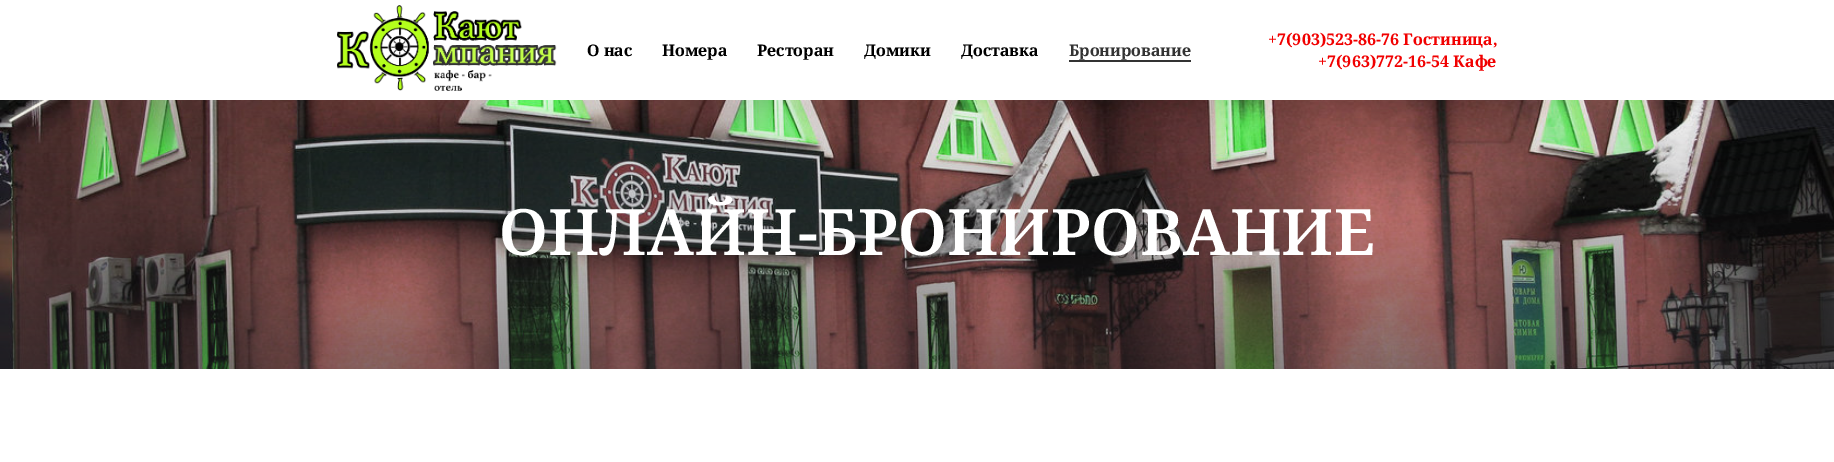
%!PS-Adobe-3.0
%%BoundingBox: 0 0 1834 462
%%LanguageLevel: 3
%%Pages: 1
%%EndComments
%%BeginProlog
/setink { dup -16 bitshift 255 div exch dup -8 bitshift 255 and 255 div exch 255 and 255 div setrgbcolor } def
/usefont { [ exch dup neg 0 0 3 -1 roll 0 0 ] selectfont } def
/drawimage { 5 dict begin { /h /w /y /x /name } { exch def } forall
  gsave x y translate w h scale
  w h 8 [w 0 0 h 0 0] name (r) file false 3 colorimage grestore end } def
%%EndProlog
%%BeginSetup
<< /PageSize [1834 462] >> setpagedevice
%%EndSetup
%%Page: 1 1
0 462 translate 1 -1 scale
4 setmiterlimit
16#FFFFFF setink
0 0 1834 462 rectfill
(img1.raw) 337 5 220 86 drawimage
/NotoSerif-Bold 16 usefont
16#000000 setink
[
    [(О нас) 587 56]
    [(Номера) 662 56]
    [(Ресторан) 757 56]
    [(Домики) 864 56]
    [(Доставка) 961 56]
] { aload pop moveto show } forall
16#333333 setink
1069 56 moveto (Бронирование) show
1069 60 122 2 rectfill
16#F10000 setink
1268 45 moveto (+7\(903\)523-86-76 Гостиница,) show
1318 67 moveto (+7\(963\)772-16-54 Кафе) show
(img2.raw) 0 100 1834 269 drawimage
/NotoSerif-SemiBold 64 usefont
16#FFFFFF setink
499 255 moveto (ОНЛАЙН-БРОНИРОВАНИЕ) show
showpage
%%EOF
